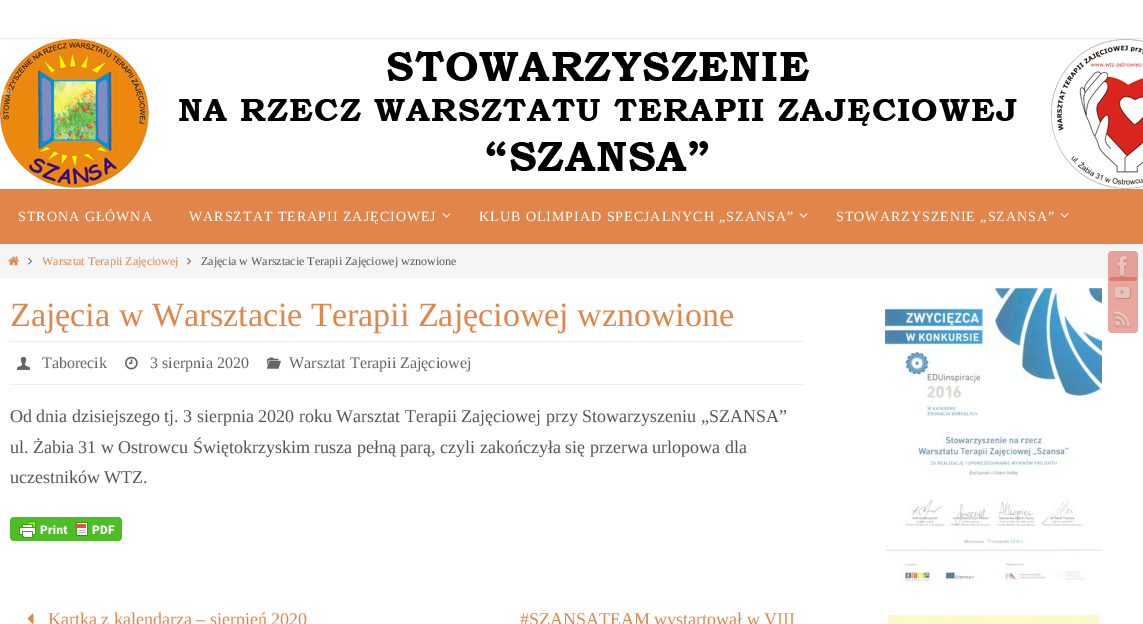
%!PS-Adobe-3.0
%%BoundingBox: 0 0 1143 624
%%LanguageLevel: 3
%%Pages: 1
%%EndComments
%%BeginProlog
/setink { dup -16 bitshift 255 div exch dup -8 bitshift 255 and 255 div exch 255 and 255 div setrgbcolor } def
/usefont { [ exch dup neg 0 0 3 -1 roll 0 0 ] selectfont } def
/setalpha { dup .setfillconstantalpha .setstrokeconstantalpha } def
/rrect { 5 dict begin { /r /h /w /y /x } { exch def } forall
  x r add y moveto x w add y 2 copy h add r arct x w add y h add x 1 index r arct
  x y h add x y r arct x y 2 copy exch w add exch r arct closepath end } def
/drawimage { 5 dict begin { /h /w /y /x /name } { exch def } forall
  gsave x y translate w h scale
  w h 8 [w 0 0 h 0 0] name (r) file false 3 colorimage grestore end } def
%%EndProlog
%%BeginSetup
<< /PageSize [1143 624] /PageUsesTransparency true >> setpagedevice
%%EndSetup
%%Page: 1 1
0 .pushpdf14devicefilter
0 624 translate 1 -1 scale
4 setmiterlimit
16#FFFFFF setink
0 0 1143 624 rectfill
16#EBEBEB setink
0 38 1143 1 rectfill
(img1.raw) 0 39 1143 150 drawimage
0.3 setalpha
16#FFFFFF setink
0 89 12 6 rectfill
1 setalpha
16#E1854B setink
0 189 1143 55 rectfill
/LiberationSerif-Regular 14 usefont
16#FFFFFF setink
18 221 moveto 1 0 (STRONA GŁÓWNA) ashow
189 221 moveto 1 0 (WARSZTAT TERAPII ZAJĘCIOWEJ) ashow
(img2.raw) 442 213 9 5 drawimage
479 221 moveto 1 0 (KLUB OLIMPIAD SPECJALNYCH „SZANSA”) ashow
(img2.raw) 799 213 9 5 drawimage
836 221 moveto 1 0 (STOWARZYSZENIE „SZANSA”) ashow
(img2.raw) 1060 213 9 5 drawimage
16#F5F5F5 setink
0 244 1143 34 rectfill
(img3.raw) 8 256 11 10 drawimage
(img4.raw) 28 257 4 8 drawimage
/LiberationSerif-Regular 12 usefont
16#E1854B setink
42 265 moveto (Warsztat Terapii Zajęciowej) show
(img4.raw) 187 257 4 8 drawimage
16#555555 setink
201 265 moveto (Zajęcia w Warsztacie Terapii Zajęciowej wznowione) show
0.5 setalpha
16#D34D3F setink
1108 251 30 30 4 rrect fill
1108 277 30 30 4 rrect fill
1 setalpha
(img5.raw) 1116 256 12 22 drawimage
(img6.raw) 1115 287 16 12 drawimage
16#E9A69F setink
1108 303 30 30 4 rrect fill
(img7.raw) 1113 311 18 18 drawimage
/LiberationSerif-Regular 34 usefont
16#E1854B setink
10 326 moveto (Zajęcia w Warsztacie Terapii Zajęciowej wznowione) show
16#EEEEEE setink
10 341 793 1 rectfill
10 384 793 1 rectfill
(img8.raw) 17 357 13 13 drawimage
/LiberationSerif-Regular 16 usefont
16#666666 setink
42 368 moveto (Taborecik) show
(img9.raw) 125 356 13 14 drawimage
150 368 moveto (3 sierpnia 2020) show
(img10.raw) 267 357 14 12 drawimage
289 368 moveto (Warsztat Terapii Zajęciowej) show
/LiberationSerif-Regular 18 usefont
16#555555 setink
[
    [(Od dnia dzisiejszego tj. 3 sierpnia 2020 roku Warsztat Terapii Zajęciowej przy Stowarzyszeniu „SZANSA”) 10 422]
    [(ul. Żabia 31 w Ostrowcu Świętokrzyskim rusza pełną parą, czyli zakończyła się przerwa urlopowa dla) 10 453]
    [(uczestników WTZ.) 10 483]
] { aload pop moveto show } forall
(img11.raw) 10 517 112 24 drawimage
(img12.raw) 27 613 7 11 drawimage
16#E1854B setink
48 625 moveto (Kartka z kalendarza – sierpień 2020) show
520 625 moveto (#SZANSATEAM wystartował w VIII) show
(img13.raw) 885 288 217 300 drawimage
(img14.raw) 888 615 211 9 drawimage
.poppdf14devicefilter showpage
%%EOF
